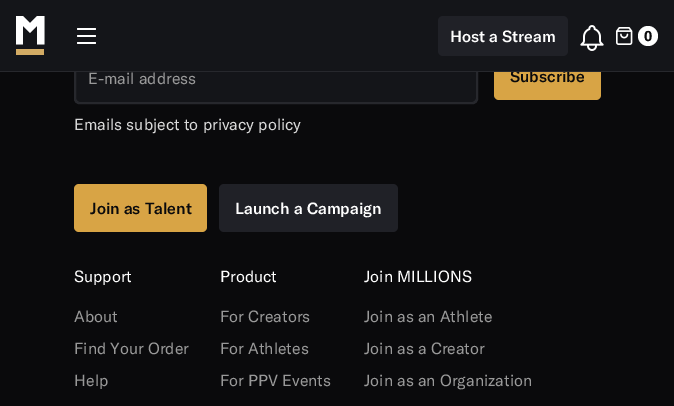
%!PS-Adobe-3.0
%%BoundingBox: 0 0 674 406
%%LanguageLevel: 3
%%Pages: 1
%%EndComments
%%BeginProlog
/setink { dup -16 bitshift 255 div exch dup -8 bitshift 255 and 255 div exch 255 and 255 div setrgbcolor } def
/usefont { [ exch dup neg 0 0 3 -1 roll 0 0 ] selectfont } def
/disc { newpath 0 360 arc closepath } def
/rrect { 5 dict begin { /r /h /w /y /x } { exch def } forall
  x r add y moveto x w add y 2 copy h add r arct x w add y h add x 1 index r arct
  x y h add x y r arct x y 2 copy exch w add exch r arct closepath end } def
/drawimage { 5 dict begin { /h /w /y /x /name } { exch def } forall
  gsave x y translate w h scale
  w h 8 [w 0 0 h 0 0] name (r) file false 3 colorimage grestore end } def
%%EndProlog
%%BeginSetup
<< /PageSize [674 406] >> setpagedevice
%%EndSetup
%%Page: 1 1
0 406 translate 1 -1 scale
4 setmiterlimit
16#0A0A0C setink
0 0 674 406 rectfill
16#27282D setink
74.5 52.5 403 51 4.5 rrect gsave fill grestore
stroke
16#141519 setink
75.5 53.5 401 49 4.5 rrect gsave fill grestore
16#27282D setink
stroke
16#D8A445 setink
494 52 107 48 5 rrect fill
/GTAmerica-Medium 16 usefont
16#0A0A0C setink
510 82 moveto (Subscribe) show
16#141519 setink
0 0 674 71 rectfill
16#27282D setink
0 71 674 1 rectfill
16#FFFFFF setink
23 16 moveto 30 23 lineto 37 16 lineto 44.5 16 lineto 44.5 44.5 lineto 37 44.5 lineto 37 26 lineto 30 33 lineto 23 26 lineto 23 44.5 lineto 16 44.5 lineto 16 16 lineto closepath fill
16#D2AB64 setink
16 49 28 6 rectfill
16#FFFFFF setink
77 28 19 2 1 rrect fill
77 35 19 2 1 rrect fill
77 42 19 2 1 rrect fill
16#202127 setink
438 16 130 40 5 rrect fill
16#FFFFFF setink
450 42 moveto (Host a Stream) show
(img1.raw) 580 25 24 26 drawimage
(img2.raw) 616 27 17 18 drawimage
648 36 10 disc fill
/GTAmerica-Bold 14 usefont
16#0A0A0C setink
644 41 moveto (0) show
/GTAmerica-Regular 16 usefont
16#999999 setink
88 84 moveto (E-mail address) show
16#D9D9D9 setink
74 130 moveto (Emails subject to privacy policy) show
16#D8A445 setink
74 184 133 48 5 rrect fill
/GTAmerica-Medium 16 usefont
16#0A0A0C setink
90 214 moveto (Join as Talent) show
16#202127 setink
219 184 179 48 5 rrect fill
16#FFFFFF setink
235 214 moveto (Launch a Campaign) show
/GTAmerica-Regular 16 usefont
74 282 moveto (Support) show
16#999999 setink
[
    [(About) 74 322]
    [(Find Your Order) 74 354]
    [(Help) 74 386]
] { aload pop moveto show } forall
16#FFFFFF setink
220 282 moveto (Product) show
16#999999 setink
[
    [(For Creators) 220 322]
    [(For Athletes) 220 354]
    [(For PPV Events) 220 386]
] { aload pop moveto show } forall
16#FFFFFF setink
364 282 moveto (Join MILLIONS) show
16#999999 setink
[
    [(Join as an Athlete) 364 322]
    [(Join as a Creator) 364 354]
    [(Join as an Organization) 364 386]
] { aload pop moveto show } forall
showpage
%%EOF
